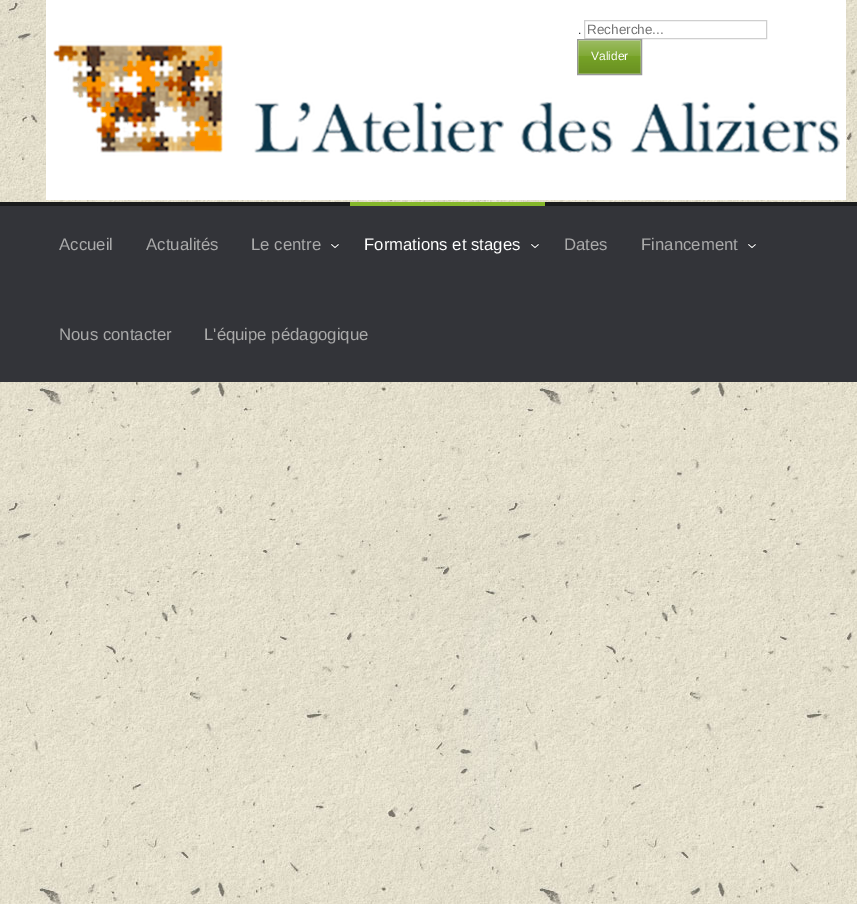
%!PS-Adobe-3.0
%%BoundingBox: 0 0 857 904
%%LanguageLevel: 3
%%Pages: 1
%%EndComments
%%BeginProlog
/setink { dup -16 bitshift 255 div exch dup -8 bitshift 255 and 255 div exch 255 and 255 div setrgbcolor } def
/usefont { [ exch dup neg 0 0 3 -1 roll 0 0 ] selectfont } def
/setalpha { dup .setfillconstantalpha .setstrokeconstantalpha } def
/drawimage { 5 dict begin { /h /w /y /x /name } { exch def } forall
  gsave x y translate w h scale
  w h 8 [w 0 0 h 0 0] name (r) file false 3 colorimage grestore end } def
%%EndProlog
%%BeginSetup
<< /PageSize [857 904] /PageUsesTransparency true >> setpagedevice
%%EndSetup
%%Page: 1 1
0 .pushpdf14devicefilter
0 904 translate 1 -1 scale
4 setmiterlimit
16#FFFFFF setink
0 0 857 904 rectfill
(img1.raw) 0 0 857 904 drawimage
46 0 7 200 rectfill
(img2.raw) 53 0 793 200 drawimage
/LiberationSans-Regular 12 usefont
16#313439 setink
578 34 moveto (.) show
16#CFCFCF setink
584.5 20.5 182 18 rectstroke
/LiberationSans-Regular 13.5 usefont
16#757575 setink
587 34 moveto (Recherche...) show
16#999999 setink
577.5 39.5 64 35 rectstroke
16#76A226 setink
578 40 63 34 rectfill
(img3.raw) 578 41 63 33 drawimage
16#B6C896 setink
578 40 moveto 641 40 lineto 640 41 lineto 579 41 lineto closepath fill
0.3 setalpha
16#E1E1E1 setink
641 40 moveto 641 74 lineto 640 73 lineto 640 41 lineto closepath fill
641 74 moveto 578 74 lineto 579 73 lineto 640 73 lineto closepath fill
578 74 moveto 578 40 lineto 579 41 lineto 579 73 lineto closepath fill
/LiberationSans-Regular 12 usefont
1 setalpha
16#FFFFFF setink
591 60 moveto (Valider) show
16#333439 setink
0 206 857 176 rectfill
16#1B1C1D setink
0 202 857 4 rectfill
/LiberationSans-Regular 16.75 usefont
16#AAAAAA setink
[
    [(Accueil) 59 250]
    [(Actualités) 146 250]
    [(Le centre) 251 250]
] { aload pop moveto show } forall
(img4.raw) 331 243 8 5 drawimage
16#85B72B setink
350 202 195 4 rectfill
16#FFFFFF setink
364 250 moveto (Formations et stages) show
(img4.raw) 531 243 8 5 drawimage
16#AAAAAA setink
564 250 moveto (Dates) show
641 250 moveto (Financement) show
(img4.raw) 748 243 8 5 drawimage
59 340 moveto (Nous contacter) show
204 340 moveto (L'équipe pédagogique) show
.poppdf14devicefilter showpage
%%EOF
